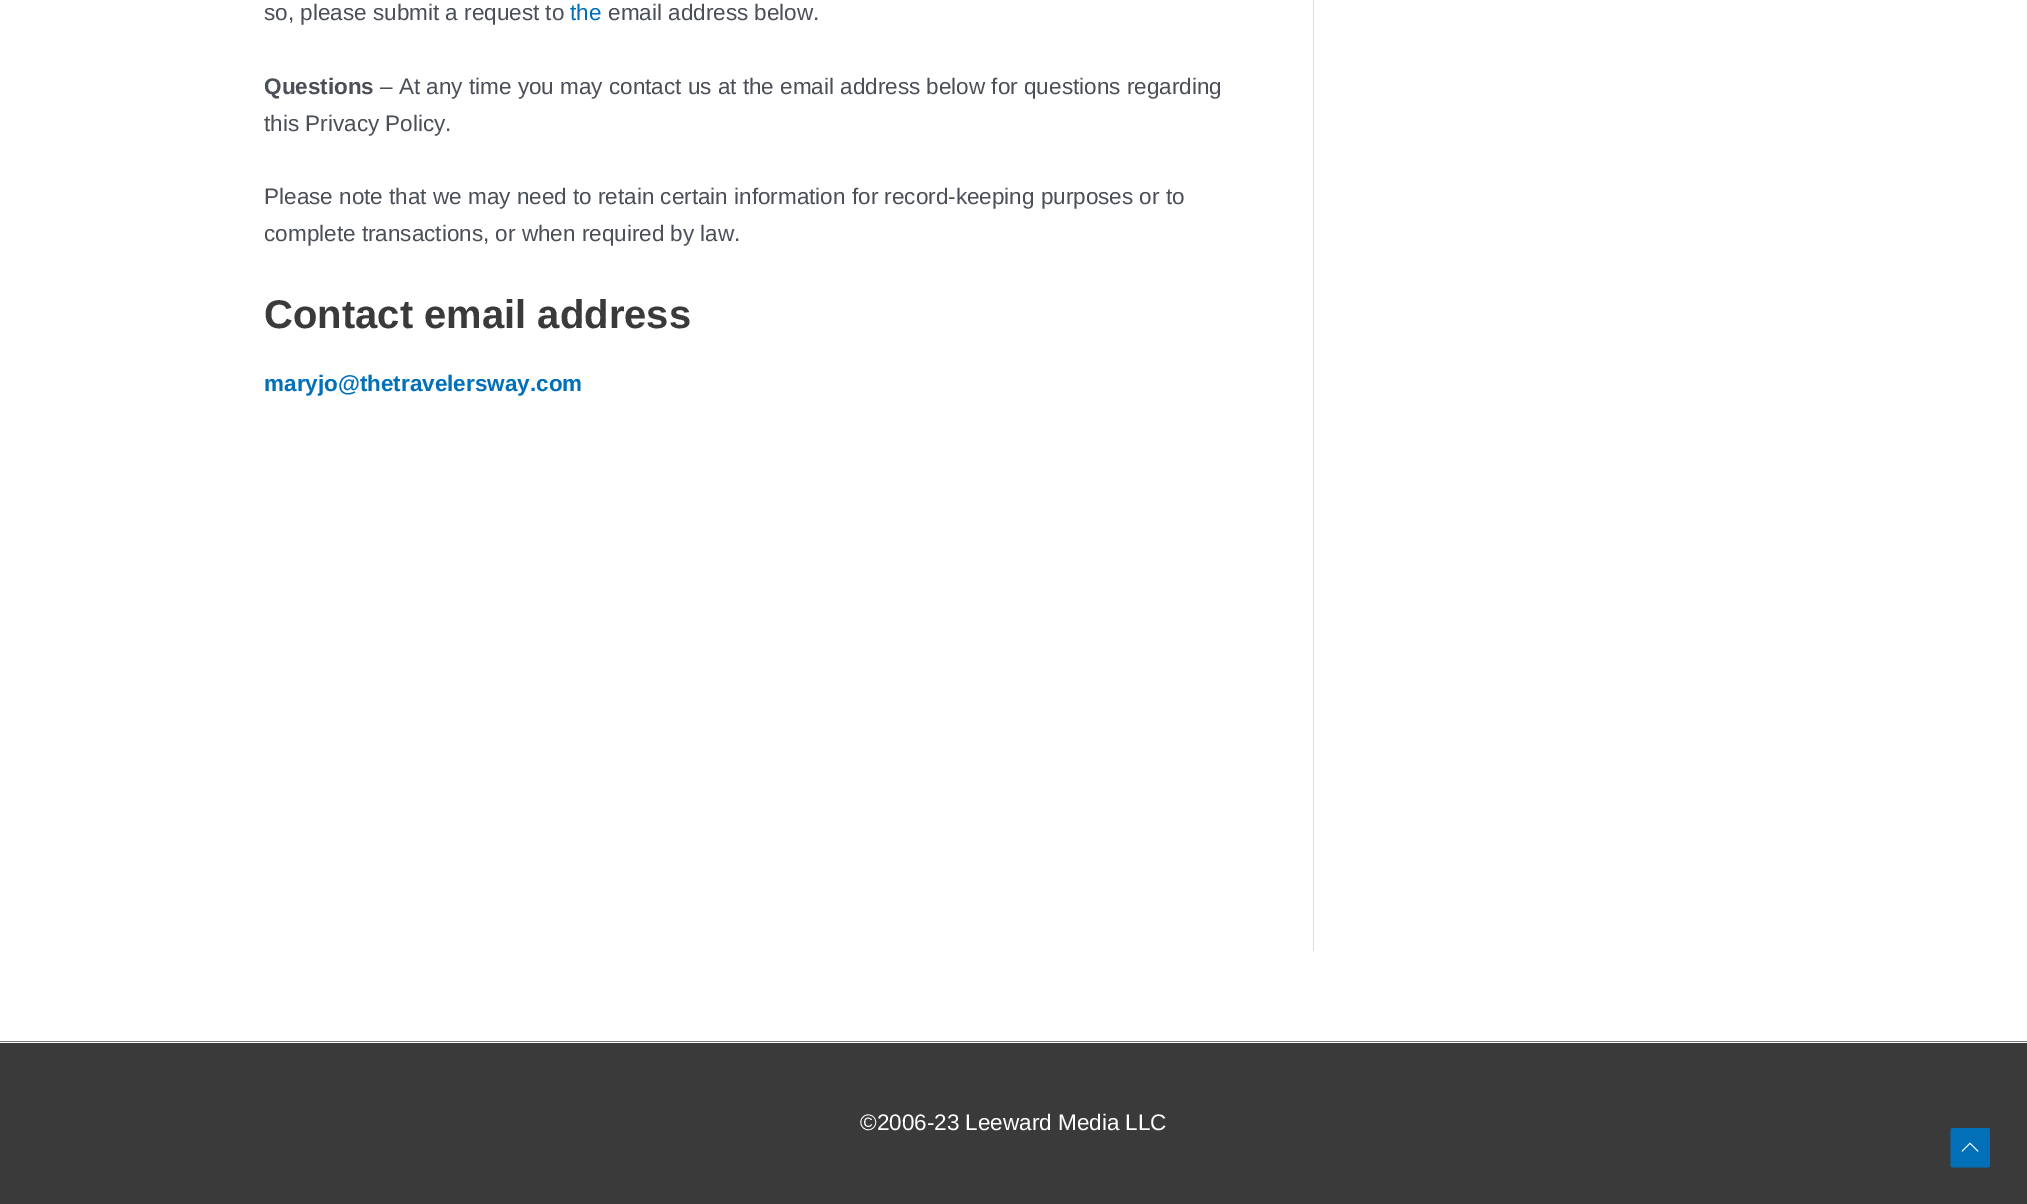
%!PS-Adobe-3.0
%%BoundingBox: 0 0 2027 1204
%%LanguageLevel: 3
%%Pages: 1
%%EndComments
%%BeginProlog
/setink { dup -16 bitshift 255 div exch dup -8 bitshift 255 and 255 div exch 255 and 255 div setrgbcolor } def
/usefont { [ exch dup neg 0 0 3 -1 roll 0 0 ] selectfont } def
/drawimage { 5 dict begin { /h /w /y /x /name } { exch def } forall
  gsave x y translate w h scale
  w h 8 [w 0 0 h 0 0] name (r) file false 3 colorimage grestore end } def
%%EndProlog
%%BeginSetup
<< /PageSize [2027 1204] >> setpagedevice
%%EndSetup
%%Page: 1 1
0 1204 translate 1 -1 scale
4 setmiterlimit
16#FFFFFF setink
0 0 2027 1204 rectfill
16#DDDDDD setink
1313 0 1 951 rectfill
/LiberationSans-Regular 22.5 usefont
16#4B4F58 setink
264 20 moveto (so, please submit a request to) show
16#0170B9 setink
570 20 moveto (the) show
16#4B4F58 setink
608 20 moveto (email address below.) show
/LiberationSans-Bold 22.5 usefont
264 94 moveto (Questions) show
/LiberationSans-Regular 22.5 usefont
[
    [(– At any time you may contact us at the email address below for questions regarding) 380 94]
    [(this Privacy Policy.) 264 131]
    [(Please note that we may need to retain certain information for record-keeping purposes or to) 264 204]
    [(complete transactions, or when required by law.) 264 241]
] { aload pop moveto show } forall
/LiberationSans-Bold 40 usefont
16#3A3A3A setink
264 328 moveto (Contact email address) show
/LiberationSans-Bold 22.5 usefont
16#0170B9 setink
264 391 moveto (maryjo@thetravelersway.com) show
16#7A7A7A setink
0 1041 2027 1 rectfill
16#3A3A3A setink
0 1043 2027 161 rectfill
/LiberationSans-Regular 22.5 usefont
16#FFFFFF setink
860 1130 moveto (©2006-23 Leeward Media LLC) show
16#0170B9 setink
1987.5 1167.5 moveto 1953 1167.5 lineto 1951.5 1167.5 1950.5 1166.5 1950.5 1165 curveto 1950.5 1130.5 lineto 1950.5 1129 1951.5 1128 1953 1128 curveto 1987.5 1128 lineto 1989 1128 1990 1129 1990 1130.5 curveto 1990 1165 lineto 1990 1166.5 1989 1167.5 1987.5 1167.5 curveto closepath fill
(img1.raw) 1961 1142 18 10 drawimage
showpage
%%EOF
